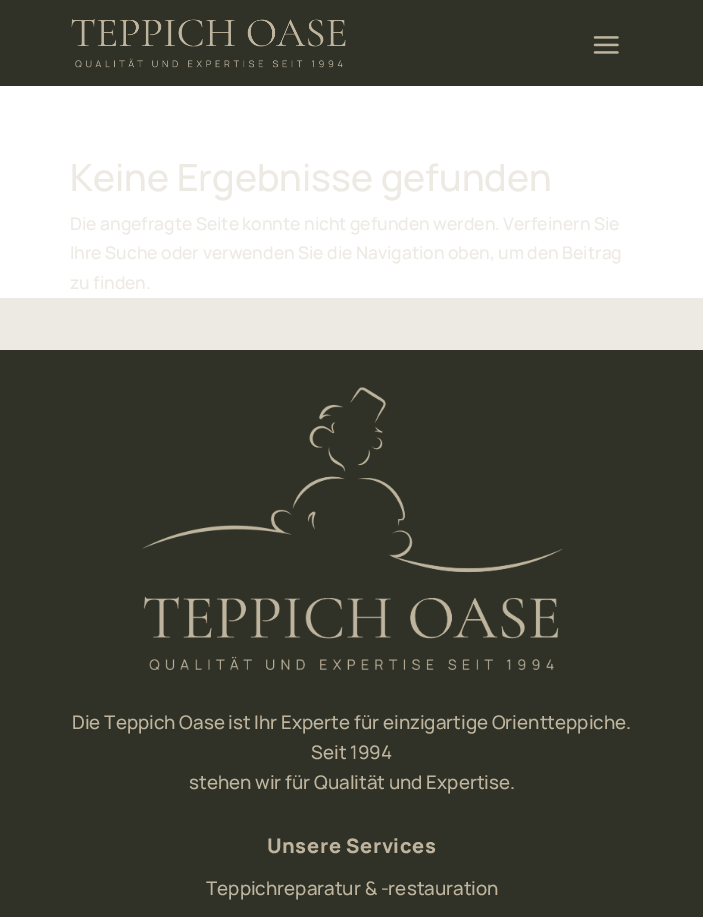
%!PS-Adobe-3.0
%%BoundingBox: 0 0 703 917
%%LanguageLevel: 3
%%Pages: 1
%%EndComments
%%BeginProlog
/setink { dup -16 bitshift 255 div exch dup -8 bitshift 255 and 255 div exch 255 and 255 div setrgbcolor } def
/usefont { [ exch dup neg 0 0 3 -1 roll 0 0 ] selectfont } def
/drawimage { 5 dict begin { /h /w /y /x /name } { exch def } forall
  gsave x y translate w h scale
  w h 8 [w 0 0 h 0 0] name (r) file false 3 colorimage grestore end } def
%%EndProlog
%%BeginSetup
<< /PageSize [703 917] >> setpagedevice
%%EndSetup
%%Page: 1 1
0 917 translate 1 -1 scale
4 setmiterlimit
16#EDE9E3 setink
0 0 703 917 rectfill
16#303228 setink
0 0 703 86 rectfill
(img1.raw) 71 18 275 50 drawimage
(img2.raw) 593 36 26 18 drawimage
16#FFFFFF setink
0 86 703 212 rectfill
/Manrope-Medium 37.5 usefont
16#EDE9E3 setink
70 191 moveto (Keine Ergebnisse gefunden) show
/Manrope-Medium 17.5 usefont
[
    [(Die angefragte Seite konnte nicht gefunden werden. Verfeinern Sie) 70 230]
    [(Ihre Suche oder verwenden Sie die Navigation oben, um den Beitrag) 70 259]
    [(zu finden.) 70 289]
] { aload pop moveto show } forall
16#303228 setink
0 350 703 567 rectfill
(img3.raw) 141 387 422 283 drawimage
/Manrope-Medium 18.75 usefont
16#BFB59E setink
[
    [(Die Teppich Oase ist Ihr Experte für einzigartige Orientteppiche.) 72 729]
    [(Seit 1994) 311 759]
    [(stehen wir für Qualität und Expertise.) 189 789]
] { aload pop moveto show } forall
/Manrope-ExtraBold 20 usefont
267 853 moveto 0.6 0 (Unsere Services) ashow
/Manrope-Medium 18.75 usefont
206 895 moveto (Teppichreparatur & -restauration) show
showpage
%%EOF
